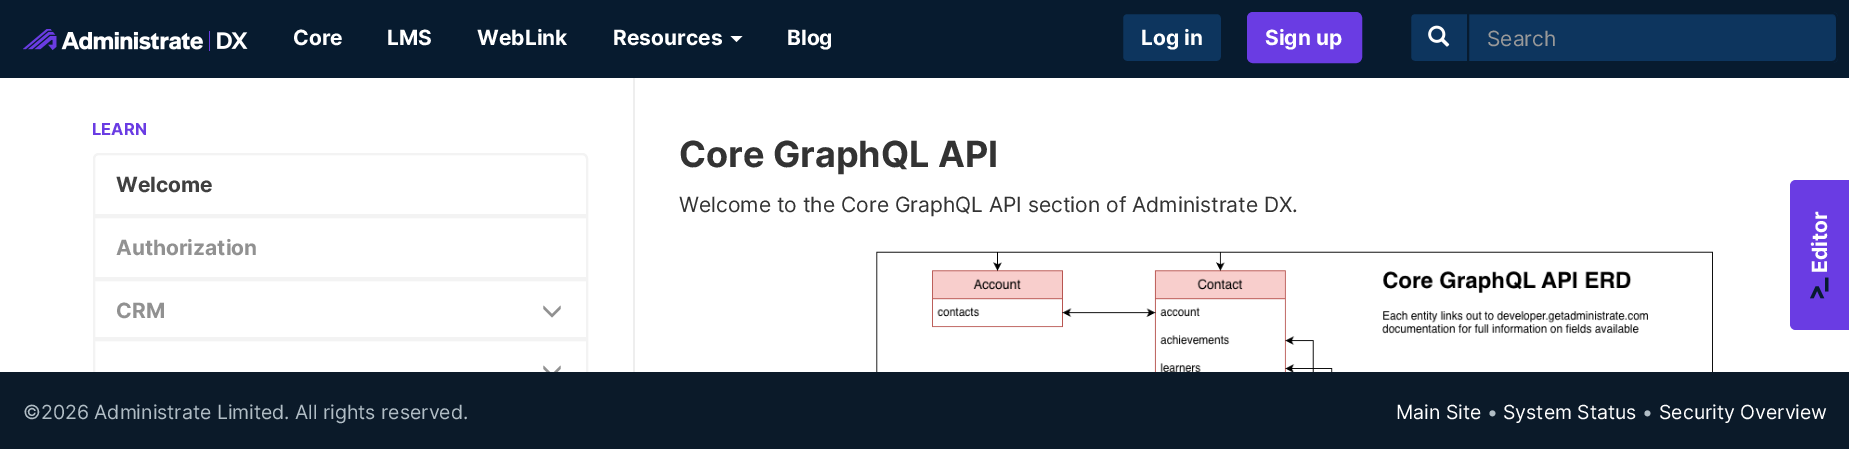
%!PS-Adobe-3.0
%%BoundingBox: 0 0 1849 449
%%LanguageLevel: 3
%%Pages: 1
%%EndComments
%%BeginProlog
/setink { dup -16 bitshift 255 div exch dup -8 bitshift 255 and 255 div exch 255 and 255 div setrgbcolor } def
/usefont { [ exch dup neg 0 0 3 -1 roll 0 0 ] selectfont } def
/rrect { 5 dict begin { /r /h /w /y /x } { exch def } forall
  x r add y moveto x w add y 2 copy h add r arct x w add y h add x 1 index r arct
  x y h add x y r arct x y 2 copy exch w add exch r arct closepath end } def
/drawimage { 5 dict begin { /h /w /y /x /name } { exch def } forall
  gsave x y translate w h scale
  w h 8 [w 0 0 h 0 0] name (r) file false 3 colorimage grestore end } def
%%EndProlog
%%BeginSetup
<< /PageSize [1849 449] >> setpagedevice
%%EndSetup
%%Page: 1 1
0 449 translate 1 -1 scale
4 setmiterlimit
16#FFFFFF setink
0 0 1849 449 rectfill
16#EEEEEE setink
633 75 2 297 rectfill
16#071B2F setink
0 0 1849 78 rectfill
(img1.raw) 23 29 225 22 drawimage
/Inter-Bold 21 usefont
16#FFFFFF setink
[
    [(Core) 293 45]
    [(LMS) 387 45]
    [(WebLink) 477 45]
    [(Resources) 613 45]
] { aload pop moveto show } forall
730.5 36 moveto 742.5 36 lineto 736.5 42 lineto closepath fill
787 45 moveto (Blog) show
16#0D355E setink
1122 13 100 49 5 rrect gsave fill grestore
16#071B2F setink
2 setlinewidth
stroke
16#FFFFFF setink
1141 45 moveto (Log in) show
16#6A3CE3 setink
1248 13 113 49 5 rrect gsave fill grestore
stroke
16#FFFFFF setink
1265 45 moveto (Sign up) show
16#0D355E setink
1415 13 moveto 1468 13 lineto 1468 62 lineto 1415 62 lineto 1412 62 1410 60 1410 57 curveto 1410 18 lineto 1410 15 1412 13 1415 13 curveto closepath gsave fill grestore
16#071B2F setink
stroke
(img2.raw) 1428 25 22 22 drawimage
16#0D355E setink
1467 12 moveto 1832 12 lineto 1835.5 12 1838 14.5 1838 18 curveto 1838 57 lineto 1838 60.5 1835.5 63 1832 63 curveto 1467 63 lineto closepath fill
16#0C3157 setink
1469 14 moveto 1469 15 lineto 1832 15 lineto 1834 15 1836 17 1836 20 curveto 1836 17 1834 14 1831 14 curveto closepath fill
16#071B2F setink
1468 13 moveto 1832 13 lineto 1835 13 1837 15 1837 18 curveto 1837 57 lineto 1837 60 1835 62 1832 62 curveto 1468 62 lineto closepath stroke
/Inter-Regular 21 usefont
16#999999 setink
1487 46 moveto (Search) show
/Inter-Bold 16.5 usefont
16#6A3CE3 setink
92 135 moveto (LEARN) show
16#F3F3F3 setink
99 154 moveto 582 154 lineto 585 154 587 156 587 159 curveto 587 215 lineto 94 215 lineto 94 159 lineto 94 156 96 154 99 154 curveto closepath stroke
/Inter-Bold 21 usefont
16#404040 setink
116 192 moveto (Welcome) show
16#F3F3F3 setink
94 217 493 61 rectstroke
16#919191 setink
116 255 moveto (Authorization) show
16#F3F3F3 setink
94 280 493 58 rectstroke
16#919191 setink
116 318 moveto (CRM) show
(img3.raw) 543 305 18 13 drawimage
16#F3F3F3 setink
94 340 493 58 rectstroke
(img4.raw) 543 365 18 7 drawimage
/Inter-Bold 36 usefont
16#333333 setink
679 167 moveto (Core GraphQL API) show
/Inter-Regular 21 usefont
679 212 moveto (Welcome to the Core GraphQL API section of Administrate DX.) show
(img5.raw) 876 251 837 121 drawimage
16#6A3CE3 setink
1790 324 moveto 1790 186 lineto 1790 183 1792 180 1796 180 curveto 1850 180 lineto 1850 330 lineto 1796 330 lineto 1792 330 1790 327 1790 324 curveto closepath fill
/Inter-Bold 21 usefont
16#FFFFFF setink
gsave 1827 273 translate -90 rotate 0 0 moveto (Editor) show grestore
(img6.raw) 1810 277 19 22 drawimage
16#0B1A29 setink
0 372 1849 77 rectfill
/Inter-Regular 19.5 usefont
16#B1BDC5 setink
23 419 moveto (©2026 Administrate Limited. All rights reserved.) show
16#FFFFFF setink
1396 419 moveto (Main Site) show
16#B1BDC5 setink
1487 419 moveto (•) show
16#FFFFFF setink
1503 419 moveto (System Status) show
16#B1BDC5 setink
1642 419 moveto (•) show
16#FFFFFF setink
1659 419 moveto (Security Overview) show
showpage
%%EOF
